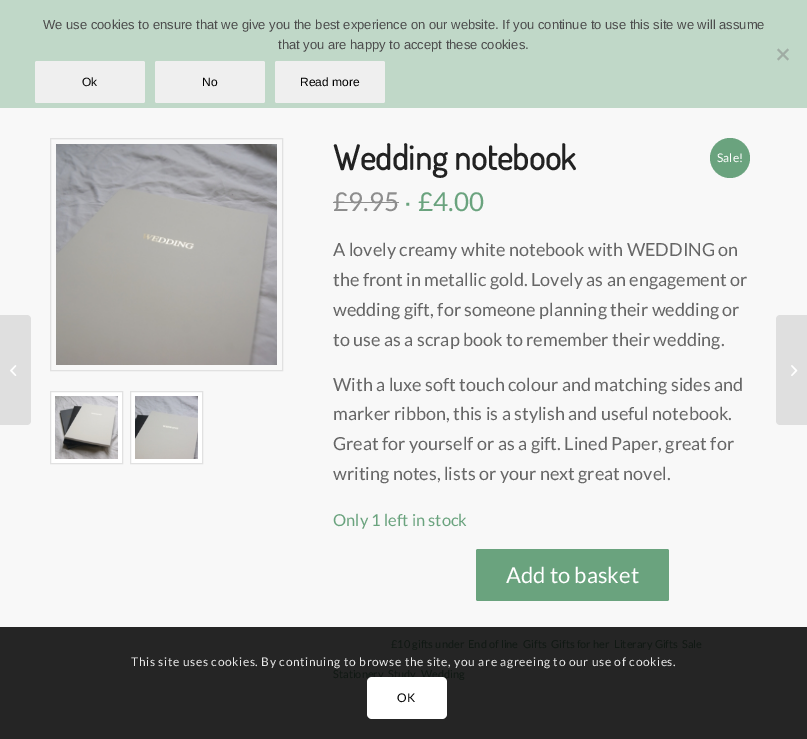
%!PS-Adobe-3.0
%%BoundingBox: 0 0 807 739
%%LanguageLevel: 3
%%Pages: 1
%%EndComments
%%BeginProlog
/setink { dup -16 bitshift 255 div exch dup -8 bitshift 255 and 255 div exch 255 and 255 div setrgbcolor } def
/usefont { [ exch dup neg 0 0 3 -1 roll 0 0 ] selectfont } def
/disc { newpath 0 360 arc closepath } def
/rrect { 5 dict begin { /r /h /w /y /x } { exch def } forall
  x r add y moveto x w add y 2 copy h add r arct x w add y h add x 1 index r arct
  x y h add x y r arct x y 2 copy exch w add exch r arct closepath end } def
/drawimage { 5 dict begin { /h /w /y /x /name } { exch def } forall
  gsave x y translate w h scale
  w h 8 [w 0 0 h 0 0] name (r) file false 3 colorimage grestore end } def
%%EndProlog
%%BeginSetup
<< /PageSize [807 739] >> setpagedevice
%%EndSetup
%%Page: 1 1
0 739 translate 1 -1 scale
4 setmiterlimit
16#F8F8F8 setink
0 0 807 739 rectfill
16#C0D8C8 setink
0 0 807 108 rectfill
/LiberationSans-Regular 13 usefont
16#4C4C4C setink
43 29 moveto (We use cookies to ensure that we give you the best experience on our website. If you continue to use this site we will assume) show
278 49 moveto (that you are happy to accept these cookies.) show
16#A0ACA4 setink
787.5 48.5 moveto 789 50 lineto 778.5 60.5 lineto 777 59 lineto closepath fill
777 50 moveto 778.5 48.5 lineto 789 59 lineto 787.5 60.5 lineto closepath fill
16#EFEFEF setink
35 61 110 42 2 rrect fill
/LiberationSans-Regular 12 usefont
16#000000 setink
82 86 moveto (Ok) show
16#EFEFEF setink
155 61 110 42 2 rrect fill
16#000000 setink
202 86 moveto (No) show
16#EFEFEF setink
275 61 110 42 2 rrect fill
16#000000 setink
300 86 moveto (Read more) show
16#DFDFDF setink
0 315 moveto 27 315 lineto 29 315 31 317 31 319 curveto 31 421 lineto 31 423 29 425 27 425 curveto 0 425 lineto closepath fill
(img1.raw) 10 365 7 11 drawimage
16#252525 setink
0 627 807 112 rectfill
/Dosis-Bold 34 usefont
16#222222 setink
333 170 moveto (Wedding notebook) show
/Lato-Regular 26 usefont
16#8D8D8D setink
333 211 moveto (£9.95) show
333 202 66 1 rectfill
/LiberationSans-Bold 20 usefont
16#6AA37E setink
405 211 moveto (∙) show
/Lato-Regular 26 usefont
418 211 moveto (£4.00) show
/Lato-Regular 18 usefont
16#666666 setink
[
    [(A lovely creamy white notebook with WEDDING on) 333 256]
    [(the front in metallic gold. Lovely as an engagement or) 333 286]
    [(wedding gift, for someone planning their wedding or) 333 316]
    [(to use as a scrap book to remember their wedding.) 333 346]
    [(With a luxe soft touch colour and matching sides and) 333 391]
    [(marker ribbon, this is a stylish and useful notebook.) 333 420]
    [(Great for yourself or as a gift. Lined Paper, great for) 333 450]
    [(writing notes, lists or your next great novel.) 333 480]
] { aload pop moveto show } forall
/Lato-Regular 16.5 usefont
16#6AA37E setink
333 526 moveto (Only 1 left in stock) show
476 549 193 52 2 rrect fill
/Lato-Regular 22 usefont
16#FFFFFF setink
506 583 moveto (Add to basket) show
/Lato-Regular 11 usefont
16#101813 setink
[
    [(£10 gifts under) 391 648]
    [(End of line) 468 648]
    [(Gifts) 523 648]
    [(Gifts for her) 551 648]
    [(Literary Gifts) 614 648]
    [(Sale) 682 648]
    [(Stationery) 333 678]
    [(Study) 388 678]
    [(Wedding) 421 678]
] { aload pop moveto show } forall
16#E1E1E1 setink
50.5 138.5 232 232 rectstroke
(img2.raw) 56 144 221 221 drawimage
16#FFFFFF setink
50.5 391.5 moveto 122.5 391.5 lineto 122.5 463.5 lineto 50.5 463.5 lineto closepath gsave fill grestore
16#E1E1E1 setink
stroke
(img3.raw) 55 396 63 63 drawimage
16#FFFFFF setink
130.5 391.5 moveto 202.5 391.5 lineto 202.5 463.5 lineto 130.5 463.5 lineto closepath gsave fill grestore
16#E1E1E1 setink
stroke
(img4.raw) 135 396 63 63 drawimage
16#6AA37E setink
730 158 20 disc fill
/Lato-Regular 12 usefont
16#FFFFFF setink
717 162 moveto (Sale!) show
16#DFDFDF setink
780 315 moveto 807 315 lineto 807 425 lineto 780 425 lineto 778 425 776 423 776 421 curveto 776 319 lineto 776 317 778 315 780 315 curveto closepath fill
(img5.raw) 791 365 7 11 drawimage
16#E9E9E9 setink
131 666 moveto 0.6 0 (This site uses cookies. By continuing to browse the site, you are agreeing to our use of cookies.) ashow
16#FFFFFF setink
367 677 80 42 5 rrect fill
16#000000 setink
397 702 moveto 0.6 0 (OK) ashow
showpage
%%EOF
